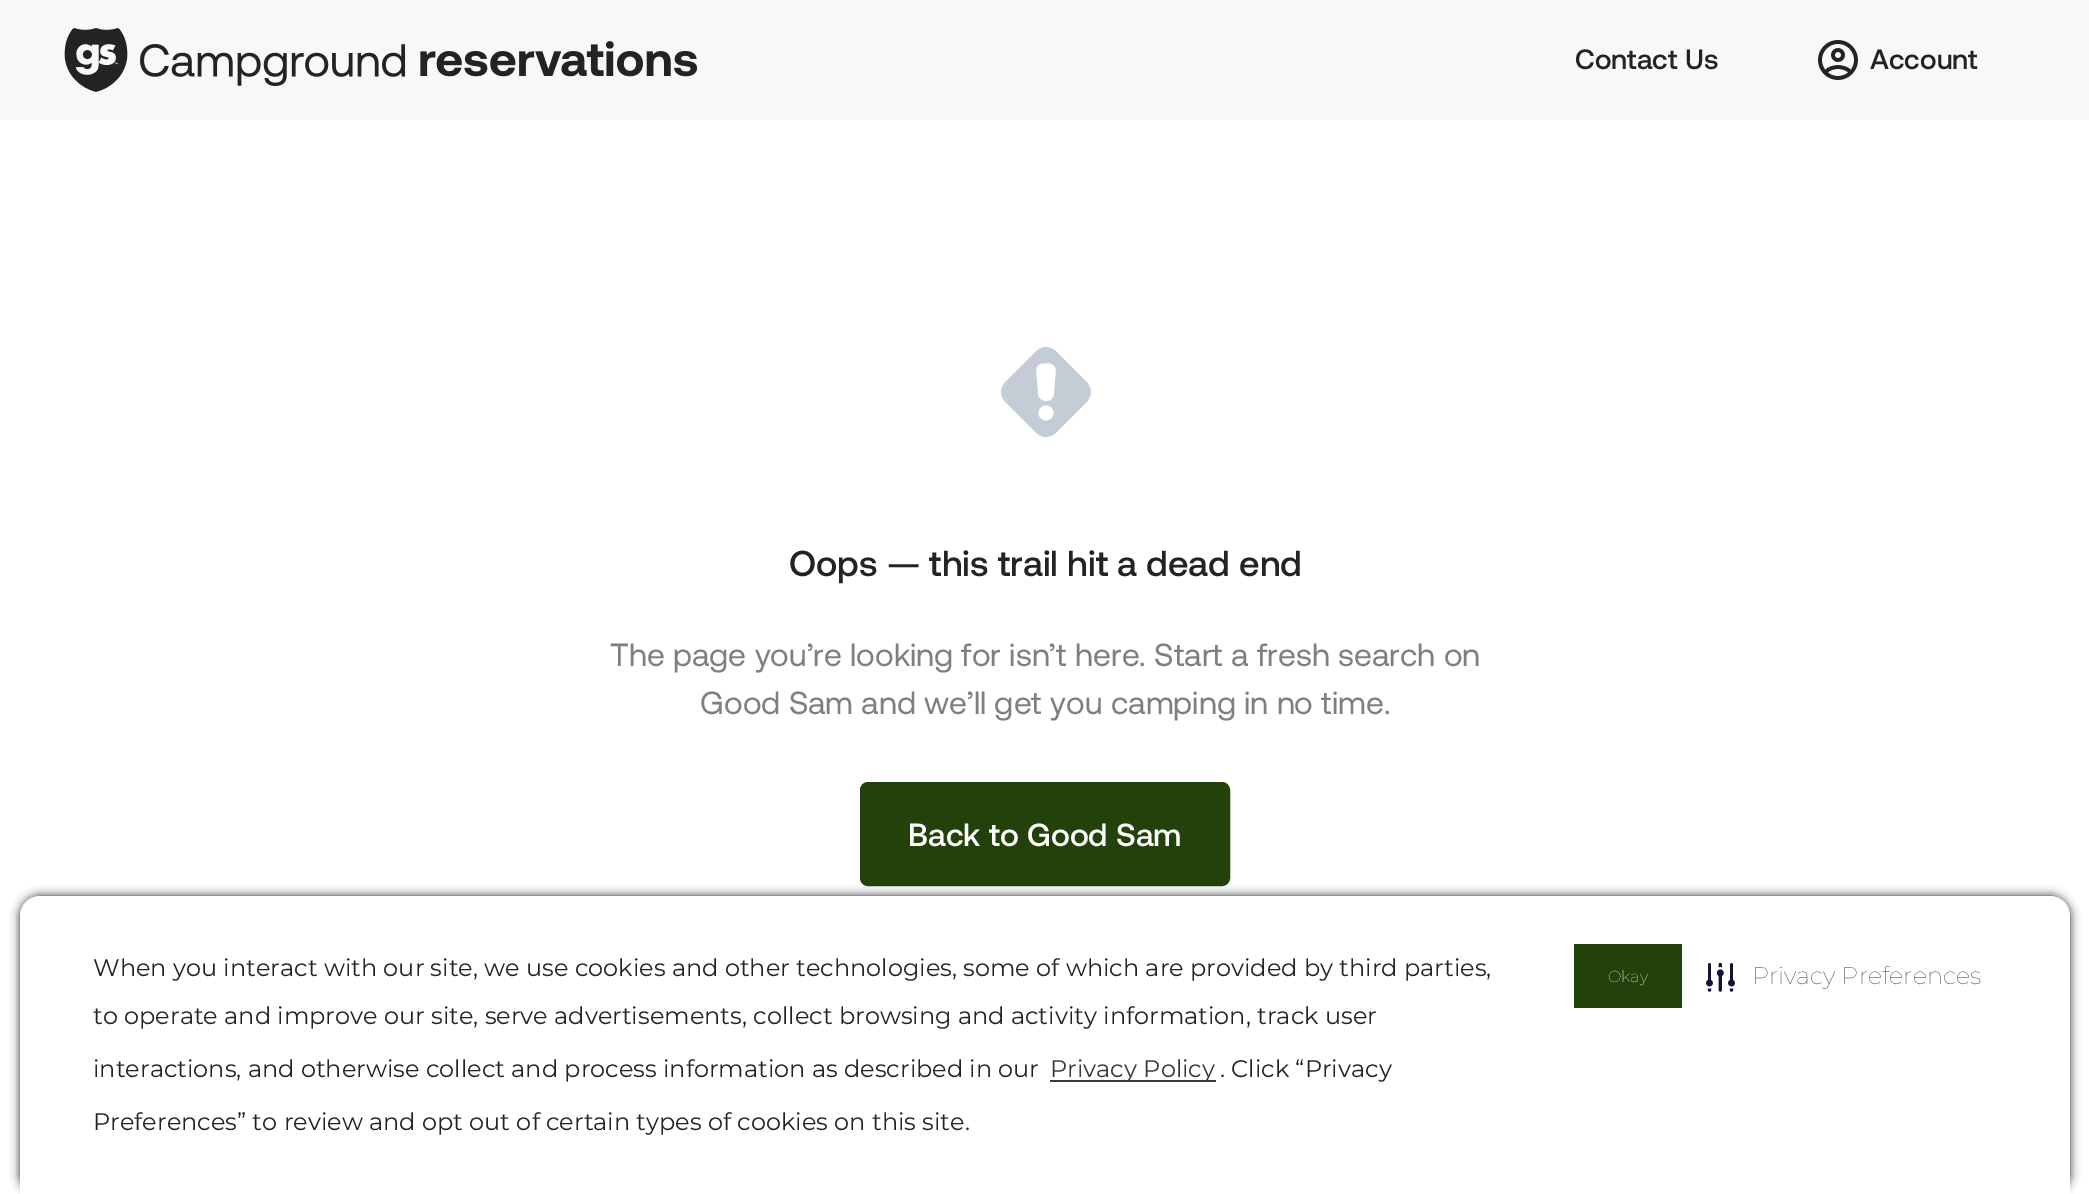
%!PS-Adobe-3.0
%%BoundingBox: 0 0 2089 1194
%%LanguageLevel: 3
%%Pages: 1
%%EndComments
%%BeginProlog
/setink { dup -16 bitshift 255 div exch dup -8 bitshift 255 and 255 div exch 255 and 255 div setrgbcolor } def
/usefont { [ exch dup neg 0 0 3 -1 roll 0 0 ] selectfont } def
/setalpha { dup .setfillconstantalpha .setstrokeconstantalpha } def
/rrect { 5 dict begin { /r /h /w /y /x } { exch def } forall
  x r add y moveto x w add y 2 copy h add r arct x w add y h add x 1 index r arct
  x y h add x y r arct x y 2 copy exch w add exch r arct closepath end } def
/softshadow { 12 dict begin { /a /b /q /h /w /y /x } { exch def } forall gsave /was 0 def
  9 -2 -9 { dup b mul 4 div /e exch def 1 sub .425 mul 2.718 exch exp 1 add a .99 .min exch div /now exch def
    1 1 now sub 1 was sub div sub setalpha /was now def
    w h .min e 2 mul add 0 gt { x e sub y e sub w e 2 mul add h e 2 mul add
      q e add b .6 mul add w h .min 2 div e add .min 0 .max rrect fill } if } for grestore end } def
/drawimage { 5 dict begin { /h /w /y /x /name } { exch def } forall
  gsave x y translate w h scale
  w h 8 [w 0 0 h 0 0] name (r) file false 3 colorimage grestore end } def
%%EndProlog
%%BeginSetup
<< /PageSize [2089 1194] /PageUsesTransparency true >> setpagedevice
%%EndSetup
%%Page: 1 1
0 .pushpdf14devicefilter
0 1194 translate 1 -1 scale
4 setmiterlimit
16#FFFFFF setink
0 0 2089 1194 rectfill
16#F8F8F6 setink
0 0 2089 120 rectfill
(img1.raw) 64 28 634 64 drawimage
/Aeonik-Medium 28 usefont
16#232323 setink
1575 69 moveto (Contact Us) show
(img2.raw) 1818 40 40 40 drawimage
1870 69 moveto (Account) show
(img3.raw) 1001 347 90 90 drawimage
/Aeonik-Medium 36 usefont
789 576 moveto (Oops — this trail hit a dead end) show
/Aeonik-Regular 32 usefont
16#7F7F7F setink
610 666 moveto (The page you’re looking for isn’t here. Start a fresh search on) show
700 714 moveto (Good Sam and we’ll get you camping in no time.) show
16#23410A setink
861 783 368 102 7 rrect gsave fill grestore
2 setlinewidth
stroke
/Aeonik-Medium 32 usefont
16#FFFFFF setink
908 846 moveto (Back to Good Sam) show
16#192224 setink
20 896 2050 298 20 5 1 softshadow
16#FFFFFF setink
40 896 moveto 2050 896 lineto 2061 896 2070 905 2070 916 curveto 2070 1194 lineto 20 1194 lineto 20 916 lineto 20 905 29 896 40 896 curveto closepath fill
/Montserrat-Regular 24 usefont
16#232323 setink
[
    [(When you interact with our site, we use cookies and other technologies, some of which are provided by third parties,) 93 976]
    [(to operate and improve our site, serve advertisements, collect browsing and activity information, track user) 93 1024]
    [(interactions, and otherwise collect and process information as described in our) 93 1077]
] { aload pop moveto show } forall
16#35383E setink
1050 1080 166 2 rectfill
1050 1077 moveto (Privacy Policy) show
16#232323 setink
1220 1077 moveto (. Click “Privacy) show
93 1130 moveto (Preferences” to review and opt out of certain types of cookies on this site.) show
16#23410A setink
1574 944 108 64 rectfill
/Montserrat-Thin 16 usefont
16#FFFFFF setink
1608 982 moveto (Okay) show
(img4.raw) 1706 962 29 30 drawimage
/Montserrat-Thin 24 usefont
16#35383E setink
1752 984 moveto (Privacy Preferences) show
.poppdf14devicefilter showpage
%%EOF
